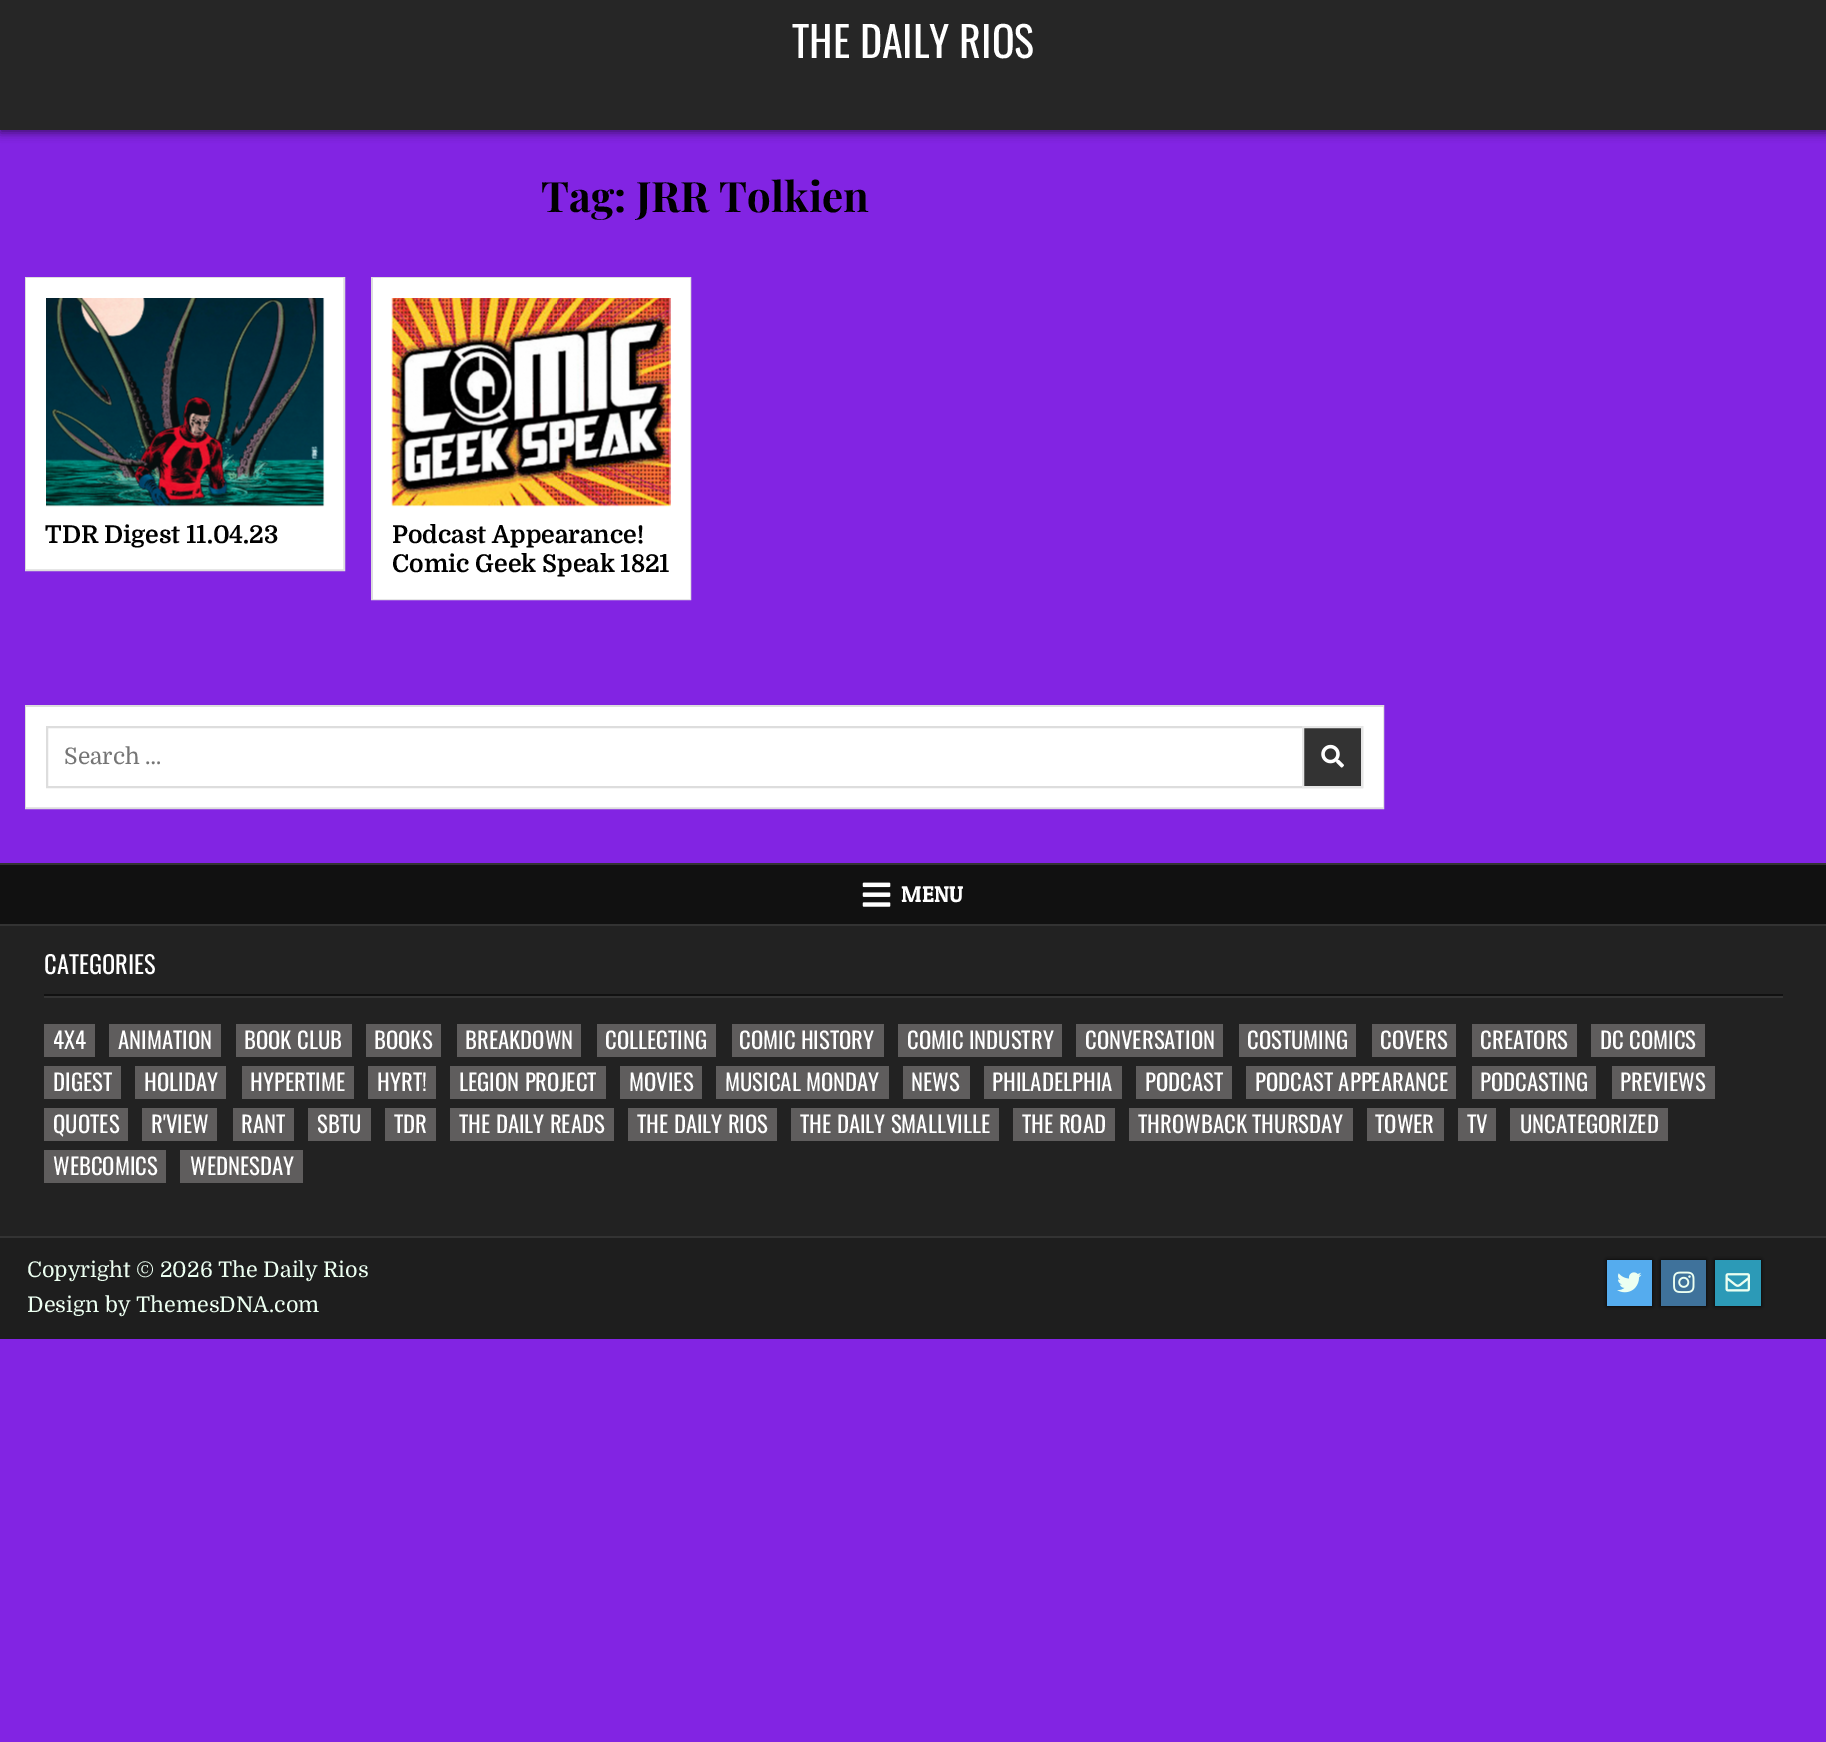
%!PS-Adobe-3.0
%%BoundingBox: 0 0 1826 1742
%%LanguageLevel: 3
%%Pages: 1
%%EndComments
%%BeginProlog
/setink { dup -16 bitshift 255 div exch dup -8 bitshift 255 and 255 div exch 255 and 255 div setrgbcolor } def
/usefont { [ exch dup neg 0 0 3 -1 roll 0 0 ] selectfont } def
/setalpha { dup .setfillconstantalpha .setstrokeconstantalpha } def
/rrect { 5 dict begin { /r /h /w /y /x } { exch def } forall
  x r add y moveto x w add y 2 copy h add r arct x w add y h add x 1 index r arct
  x y h add x y r arct x y 2 copy exch w add exch r arct closepath end } def
/softshadow { 12 dict begin { /a /b /q /h /w /y /x } { exch def } forall gsave /was 0 def
  9 -2 -9 { dup b mul 4 div /e exch def 1 sub .425 mul 2.718 exch exp 1 add a .99 .min exch div /now exch def
    1 1 now sub 1 was sub div sub setalpha /was now def
    w h .min e 2 mul add 0 gt { x e sub y e sub w e 2 mul add h e 2 mul add
      q e add b .6 mul add w h .min 2 div e add .min 0 .max rrect fill } if } for grestore end } def
/drawimage { 5 dict begin { /h /w /y /x /name } { exch def } forall
  gsave x y translate w h scale
  w h 8 [w 0 0 h 0 0] name (r) file false 3 colorimage grestore end } def
%%EndProlog
%%BeginSetup
<< /PageSize [1826 1742] /PageUsesTransparency true >> setpagedevice
%%EndSetup
%%Page: 1 1
0 .pushpdf14devicefilter
0 1742 translate 1 -1 scale
4 setmiterlimit
16#8224E3 setink
0 0 1826 1742 rectfill
16#000000 setink
0 4 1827 129 0 4.5 0.5 softshadow
16#262626 setink
0 0 1826 130 rectfill
/Oswald-Regular 42 usefont
16#FFFFFF setink
792 58 moveto (THE DAILY RIOS) show
/PlayfairDisplay-Bold 42 usefont
16#000000 setink
541 212 moveto (Tag: JRR Tolkien) show
16#FFFFFF setink
28 280 313 287 rectfill
16#DDDDDD setink
2 setlinewidth
26 278 318 292 rectstroke
16#FFFFFF setink
27 279 315 289 rectstroke
(img1.raw) 46 298 279 209 drawimage
/Domine-Bold 24.5 usefont
16#000000 setink
45 543 moveto (TDR Digest 11.04.23) show
16#FFFFFF setink
375 280 313 317 rectfill
16#DDDDDD setink
372 278 318 321 rectstroke
16#FFFFFF setink
374 279 315 319 rectstroke
(img2.raw) 391 298 280 209 drawimage
16#000000 setink
392 543 moveto (Podcast Appearance!) show
392 572 moveto (Comic Geek Speak 1821) show
16#FFFFFF setink
28 709 1353 96 rectfill
16#DDDDDD setink
26 706 1357 102 rectstroke
16#FFFFFF setink
27 708 1355 98 rectstroke
16#DDDDDD setink
47 727 1315 60 rectstroke
/Domine-Regular 22.75 usefont
16#757575 setink
64 764 moveto (Search …) show
16#333333 setink
1303 727 moveto 1362 727 lineto 1362 787 lineto 1303 787 lineto closepath gsave fill grestore
16#E6E6E6 setink
stroke
(img3.raw) 1321 744 23 24 drawimage
[
    [0 865 1826 59 16#111111]
    [0 863 1826 2 16#333333]
    [0 924 1826 2 16#333333]
] { aload pop setink rectfill } forall
(img4.raw) 862 882 29 25 drawimage
/PatuaOne-Regular 22.75 usefont
16#FFFFFF setink
901 902 moveto (MENU) show
[
    [0 926 1826 310 16#222222]
    [44 996 1739 2 16#333333]
    [44 994 1739 2 16#111111]
] { aload pop setink rectfill } forall
/Oswald-Regular 24.5 usefont
16#FFFFFF setink
44 974 moveto (CATEGORIES) show
16#5F5D5D setink
44 1024 51 33 rectfill
/Oswald-Regular 22.75 usefont
16#FFFFFF setink
53 1049 moveto (4X4) show
16#5F5D5D setink
109 1024 112 33 rectfill
16#FFFFFF setink
118 1049 moveto (ANIMATION) show
16#5F5D5D setink
236 1024 116 33 rectfill
16#FFFFFF setink
244 1049 moveto (BOOK CLUB) show
16#5F5D5D setink
366 1024 75 33 rectfill
16#FFFFFF setink
374 1049 moveto (BOOKS) show
16#5F5D5D setink
457 1024 124 33 rectfill
16#FFFFFF setink
465 1049 moveto (BREAKDOWN) show
16#5F5D5D setink
597 1024 119 33 rectfill
16#FFFFFF setink
605 1049 moveto (COLLECTING) show
16#5F5D5D setink
732 1024 152 33 rectfill
16#FFFFFF setink
739 1049 moveto (COMIC HISTORY) show
16#5F5D5D setink
898 1024 164 33 rectfill
16#FFFFFF setink
907 1049 moveto (COMIC INDUSTRY) show
16#5F5D5D setink
1076 1024 147 33 rectfill
16#FFFFFF setink
1085 1049 moveto (CONVERSATION) show
16#5F5D5D setink
1239 1024 117 33 rectfill
16#FFFFFF setink
1247 1049 moveto (COSTUMING) show
16#5F5D5D setink
1372 1024 84 33 rectfill
16#FFFFFF setink
1380 1049 moveto (COVERS) show
16#5F5D5D setink
1472 1024 105 33 rectfill
16#FFFFFF setink
1480 1049 moveto (CREATORS) show
16#5F5D5D setink
1591 1024 114 33 rectfill
16#FFFFFF setink
1600 1049 moveto (DC COMICS) show
16#5F5D5D setink
44 1066 77 33 rectfill
16#FFFFFF setink
53 1091 moveto (DIGEST) show
16#5F5D5D setink
135 1066 91 33 rectfill
16#FFFFFF setink
144 1091 moveto (HOLIDAY) show
16#5F5D5D setink
242 1066 112 33 rectfill
16#FFFFFF setink
250 1091 moveto (HYPERTIME) show
16#5F5D5D setink
368 1066 68 33 rectfill
16#FFFFFF setink
377 1091 moveto (HYRT!) show
16#5F5D5D setink
450 1066 156 33 rectfill
16#FFFFFF setink
459 1091 moveto (LEGION PROJECT) show
16#5F5D5D setink
620 1066 82 33 rectfill
16#FFFFFF setink
629 1091 moveto (MOVIES) show
16#5F5D5D setink
716 1066 173 33 rectfill
16#FFFFFF setink
725 1091 moveto (MUSICAL MONDAY) show
16#5F5D5D setink
903 1066 67 33 rectfill
16#FFFFFF setink
911 1091 moveto (NEWS) show
16#5F5D5D setink
984 1066 138 33 rectfill
16#FFFFFF setink
992 1091 moveto (PHILADELPHIA) show
16#5F5D5D setink
1136 1066 96 33 rectfill
16#FFFFFF setink
1145 1091 moveto (PODCAST) show
16#5F5D5D setink
1246 1066 210 33 rectfill
16#FFFFFF setink
1255 1091 moveto (PODCAST APPEARANCE) show
16#5F5D5D setink
1472 1066 124 33 rectfill
16#FFFFFF setink
1480 1091 moveto (PODCASTING) show
16#5F5D5D setink
1612 1066 103 33 rectfill
16#FFFFFF setink
1620 1091 moveto (PREVIEWS) show
16#5F5D5D setink
44 1108 84 33 rectfill
16#FFFFFF setink
53 1133 moveto (QUOTES) show
16#5F5D5D setink
142 1108 75 33 rectfill
16#FFFFFF setink
151 1133 moveto (R'VIEW) show
16#5F5D5D setink
233 1108 61 33 rectfill
16#FFFFFF setink
241 1133 moveto (RANT) show
16#5F5D5D setink
308 1108 63 33 rectfill
16#FFFFFF setink
317 1133 moveto (SBTU) show
16#5F5D5D setink
385 1108 51 33 rectfill
16#FFFFFF setink
394 1133 moveto (TDR) show
16#5F5D5D setink
450 1108 164 33 rectfill
16#FFFFFF setink
459 1133 moveto (THE DAILY READS) show
16#5F5D5D setink
628 1108 149 33 rectfill
16#FFFFFF setink
637 1133 moveto (THE DAILY RIOS) show
16#5F5D5D setink
791 1108 208 33 rectfill
16#FFFFFF setink
800 1133 moveto (THE DAILY SMALLVILLE) show
16#5F5D5D setink
1013 1108 102 33 rectfill
16#FFFFFF setink
1022 1133 moveto (THE ROAD) show
16#5F5D5D setink
1129 1108 224 33 rectfill
16#FFFFFF setink
1138 1133 moveto (THROWBACK THURSDAY) show
16#5F5D5D setink
1367 1108 77 33 rectfill
16#FFFFFF setink
1375 1133 moveto (TOWER) show
16#5F5D5D setink
1458 1108 38 33 rectfill
16#FFFFFF setink
1467 1133 moveto (TV) show
16#5F5D5D setink
1510 1108 158 33 rectfill
16#FFFFFF setink
1520 1133 moveto (UNCATEGORIZED) show
16#5F5D5D setink
44 1150 122 33 rectfill
16#FFFFFF setink
53 1175 moveto (WEBCOMICS) show
16#5F5D5D setink
180 1150 123 33 rectfill
16#FFFFFF setink
190 1175 moveto (WEDNESDAY) show
16#1E1E1E setink
0 1238 1826 101 rectfill
16#333333 setink
0 1236 1826 2 rectfill
/Domine-Regular 21.6 usefont
16#ECFFF1 setink
27 1277 moveto (Copyright © 2026 The Daily Rios) show
27 1312 moveto (Design by ThemesDNA.com) show
16#000000 setink
1607 1260 45 46 0 2 1 softshadow
16#55ACEE setink
1607 1260 45 46 rectfill
(img5.raw) 1617 1272 25 21 drawimage
16#000000 setink
1661 1260 45 46 0 2 1 softshadow
16#3F729B setink
1661 1260 45 46 rectfill
(img6.raw) 1673 1271 22 22 drawimage
16#000000 setink
1715 1260 46 46 0 2 1 softshadow
16#2C9AB7 setink
1715 1260 46 46 rectfill
(img7.raw) 1725 1273 25 19 drawimage
.poppdf14devicefilter showpage
%%EOF
